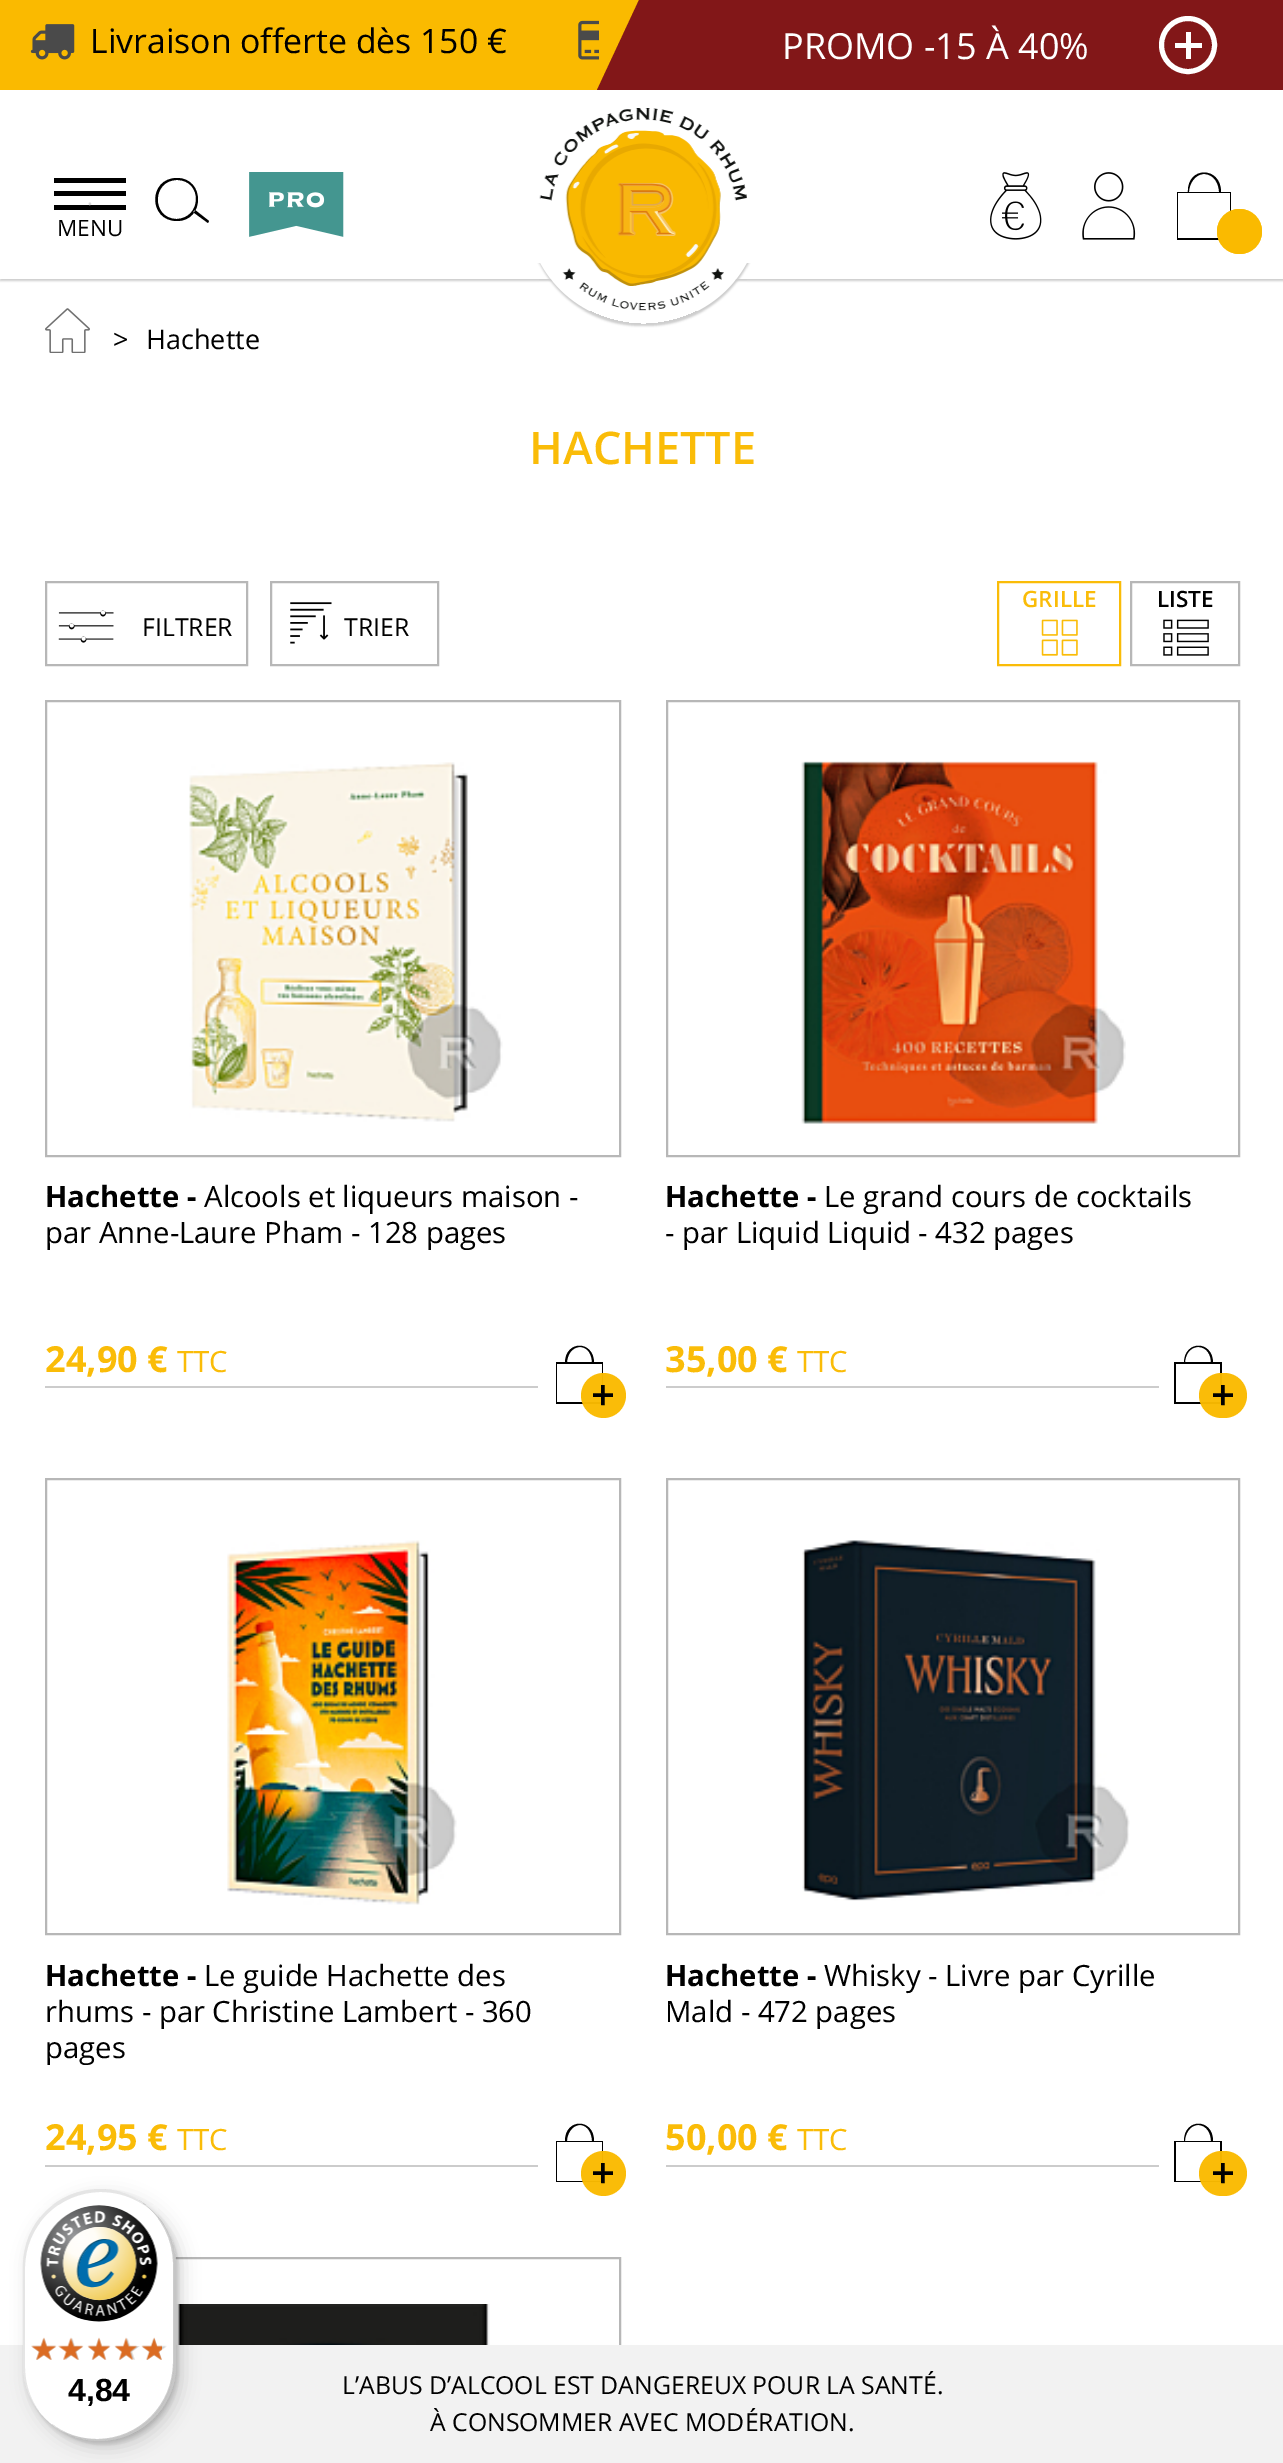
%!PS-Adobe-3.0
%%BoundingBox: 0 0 1283 2463
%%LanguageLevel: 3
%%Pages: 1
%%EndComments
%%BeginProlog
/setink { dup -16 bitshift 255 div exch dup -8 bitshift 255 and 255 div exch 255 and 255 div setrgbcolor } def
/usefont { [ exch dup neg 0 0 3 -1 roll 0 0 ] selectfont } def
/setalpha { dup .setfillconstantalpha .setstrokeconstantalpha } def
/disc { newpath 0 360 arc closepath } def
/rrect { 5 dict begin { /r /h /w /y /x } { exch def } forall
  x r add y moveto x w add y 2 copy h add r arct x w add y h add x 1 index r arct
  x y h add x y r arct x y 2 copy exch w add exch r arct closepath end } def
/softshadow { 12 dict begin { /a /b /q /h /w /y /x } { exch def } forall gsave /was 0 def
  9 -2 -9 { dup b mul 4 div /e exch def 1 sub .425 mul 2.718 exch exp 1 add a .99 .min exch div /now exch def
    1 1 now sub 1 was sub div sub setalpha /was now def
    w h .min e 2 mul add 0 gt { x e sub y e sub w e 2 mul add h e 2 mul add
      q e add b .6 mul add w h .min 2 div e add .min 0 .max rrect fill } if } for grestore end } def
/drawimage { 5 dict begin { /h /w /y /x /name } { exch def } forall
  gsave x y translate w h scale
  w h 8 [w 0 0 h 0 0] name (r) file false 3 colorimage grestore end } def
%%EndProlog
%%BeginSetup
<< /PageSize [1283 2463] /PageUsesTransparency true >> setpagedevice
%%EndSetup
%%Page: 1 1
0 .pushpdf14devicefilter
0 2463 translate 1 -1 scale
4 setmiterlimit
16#FFFFFF setink
0 0 1283 2463 rectfill
gsave
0 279 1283 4 rectclip
16#CCCCCC setink
0 92 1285 189 0 1 1 softshadow
grestore
16#FABA00 setink
0 0 639 90 rectfill
(img1.raw) 30 24 45 36 drawimage
/OpenSans-Regular 33.75 usefont
16#000000 setink
90 53 moveto (Livraison offerte dès 150 €) show
(img2.raw) 578 20 21 40 drawimage
16#821718 setink
647 0 636 90 rectfill
639 0 moveto 689 0 lineto 647 90 lineto 597 90 lineto closepath fill
/OpenSans-Regular 36 usefont
16#FFFFFF setink
782 59 moveto (PROMO -15 À 40%) show
1186 32 5 27 rectfill
5 setlinewidth
1188 45 26.5 disc stroke
[
    [1175 43 27 5 16#FFFFFF]
    [54 205 72 5 16#000000]
    [54 191 72 5 16#000000]
    [54 178 72 5 16#000000]
] { aload pop setink rectfill } forall
/OpenSans-Regular 22.5 usefont
16#D8D8D8 setink
87 205 moveto (.) show
16#000000 setink
57 236 moveto (MENU) show
177 221 moveto 148 221 148 178 177 178 curveto 205 178 205 221 177 221 curveto closepath 177 180 moveto 152 180 151 218 176 219 curveto 202 219 203 180 177 180 curveto closepath 209 221 moveto 195 210 lineto 193 212 lineto 208 223 lineto closepath fill
(img3.raw) 249 172 95 65 drawimage
(img4.raw) 990 172 52 68 drawimage
(img5.raw) 1082 172 54 68 drawimage
1231 240 moveto 1177 240 lineto 1177 192 lineto 1231 192 lineto closepath 1178 238 moveto 1230 238 lineto 1230 193 lineto 1178 193 lineto closepath 1204 192 moveto 1188 192 lineto 1187 166 1221 166 1221 192 curveto closepath 1204 174 moveto 1195 174 1189 184 1189 192 curveto 1219 192 lineto 1219 184 1214 174 1204 174 curveto closepath fill
0.97 setalpha
16#FABA00 setink
1239.5 231.5 22.5 disc fill
1239.5 231.5 22.5 disc fill
1 setalpha
16#FFFFFF setink
643.5 94 moveto 708 94 760.5 145.5 760.5 209 curveto 760.5 272.5 708 324 643.5 324 curveto 579 324 526.5 272.5 526.5 209 curveto 526.5 145.5 579 94 643.5 94 curveto closepath fill
gsave
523 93 moveto 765 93 lineto 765 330 lineto 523 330 lineto closepath 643.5 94.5 moveto 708 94.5 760.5 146 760.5 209 curveto 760.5 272.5 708 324 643.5 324 curveto 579 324 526.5 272.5 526.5 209 curveto 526.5 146 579 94.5 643.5 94.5 curveto closepath eoclip newpath
16#CCCCCC setink
527 97 234 229 114.5 1 1 softshadow
grestore
644 90 moveto 711 90 765 148 765 220 curveto 765 263 lineto 522 263 lineto 522 220 lineto 522 148 576 90 644 90 curveto closepath fill
(img6.raw) 539 108 208 203 drawimage
(img7.raw) 45 308 45 45 drawimage
/OpenSans-Regular 27 usefont
16#000000 setink
113 349 moveto (>) show
146 349 moveto (Hachette) show
/OpenSans-SemiBold 45 usefont
16#FABC08 setink
529 464 moveto (HACHETTE) show
2 setlinewidth
998 582 122 83 rectstroke
/OpenSans-SemiBold 22.5 usefont
1022 607 moveto (GRILLE) show
(img8.raw) 1041 619 37 37 drawimage
16#B7B7B7 setink
1131 582 108 83 rectstroke
16#000000 setink
1157 607 moveto (LISTE) show
(img9.raw) 1163 619 46 37 drawimage
16#B7B7B7 setink
46 582 201 83 rectstroke
(img10.raw) 58 610 56 33 drawimage
/OpenSans-Regular 24.75 usefont
16#000000 setink
142 636 moveto (FILTRER) show
16#B7B7B7 setink
271 582 167 83 rectstroke
(img11.raw) 290 602 42 42 drawimage
16#000000 setink
344 636 moveto (TRIER) show
16#B7B7B7 setink
46 701 574 455 rectstroke
(img12.raw) 189 762 314 360 drawimage
/OpenSans-Bold 29.25 usefont
16#000000 setink
45 1207 moveto (Hachette -) show
/OpenSans-Regular 29.25 usefont
204 1207 moveto (Alcools et liqueurs maison -) show
45 1243 moveto (par Anne-Laure Pham - 128 pages) show
16#CCCCCC setink
45 1386 493 2 rectfill
/OpenSans-Bold 36 usefont
16#FABC08 setink
45 1372 moveto (24,90 €) show
/OpenSans-Regular 29.25 usefont
177 1372 moveto (TTC) show
16#000000 setink
603 1404 moveto 556 1404 lineto 556 1362 lineto 603 1362 lineto closepath 557 1402 moveto 602 1402 lineto 602 1364 lineto 557 1364 lineto closepath 580 1363 moveto 565 1363 lineto 565 1340 594 1340 594 1363 curveto closepath 580 1347 moveto 572 1347 567 1355 567 1363 curveto 592 1363 lineto 592 1355 588 1347 580 1347 curveto closepath fill
0.97 setalpha
16#FABA00 setink
603.5 1395.5 22.5 disc fill
/OpenSans-SemiBold 42 usefont
1 setalpha
16#000000 setink
591 1410 moveto (+) show
16#B7B7B7 setink
667 701 572 455 rectstroke
(img13.raw) 801 761 325 363 drawimage
/OpenSans-Bold 29.25 usefont
16#000000 setink
665 1207 moveto (Hachette -) show
/OpenSans-Regular 29.25 usefont
824 1207 moveto (Le grand cours de cocktails) show
665 1243 moveto (- par Liquid Liquid - 432 pages) show
16#CCCCCC setink
666 1386 493 2 rectfill
/OpenSans-Bold 36 usefont
16#FABC08 setink
665 1372 moveto (35,00 €) show
/OpenSans-Regular 29.25 usefont
797 1372 moveto (TTC) show
16#000000 setink
1222 1404 moveto 1174 1404 lineto 1174 1362 lineto 1222 1362 lineto closepath 1176 1402 moveto 1220 1402 lineto 1220 1364 lineto 1176 1364 lineto closepath 1198 1363 moveto 1184 1363 lineto 1184 1340 1213 1340 1213 1363 curveto closepath 1198 1347 moveto 1190 1347 1185 1355 1185 1363 curveto 1211 1363 lineto 1211 1355 1207 1347 1198 1347 curveto closepath fill
0.97 setalpha
16#FABA00 setink
1199 1373 48 45 22.5 rrect fill
/OpenSans-SemiBold 42 usefont
1 setalpha
16#000000 setink
1211 1410 moveto (+) show
16#B7B7B7 setink
46 1479 574 455 rectstroke
(img14.raw) 227 1540 230 365 drawimage
/OpenSans-Bold 29.25 usefont
16#000000 setink
45 1986 moveto (Hachette -) show
/OpenSans-Regular 29.25 usefont
[
    [(Le guide Hachette des) 204 1986]
    [(rhums - par Christine Lambert - 360) 45 2022]
    [(pages) 45 2058]
] { aload pop moveto show } forall
16#CCCCCC setink
45 2165 493 2 rectfill
/OpenSans-Bold 36 usefont
16#FABC08 setink
45 2150 moveto (24,95 €) show
/OpenSans-Regular 29.25 usefont
177 2150 moveto (TTC) show
16#000000 setink
603 2182 moveto 556 2182 lineto 556 2141 lineto 603 2141 lineto closepath 557 2181 moveto 602 2181 lineto 602 2142 lineto 557 2142 lineto closepath 580 2141 moveto 565 2141 lineto 565 2118 594 2118 594 2141 curveto closepath 580 2125 moveto 572 2125 567 2134 567 2141 curveto 592 2141 lineto 592 2134 588 2125 580 2125 curveto closepath fill
0.97 setalpha
16#FABA00 setink
603.5 2173.5 22.5 disc fill
/OpenSans-SemiBold 42 usefont
1 setalpha
16#000000 setink
591 2188 moveto (+) show
16#B7B7B7 setink
667 1479 572 455 rectstroke
(img15.raw) 802 1540 328 361 drawimage
/OpenSans-Bold 29.25 usefont
16#000000 setink
665 1986 moveto (Hachette -) show
/OpenSans-Regular 29.25 usefont
824 1986 moveto (Whisky - Livre par Cyrille) show
665 2022 moveto (Mald - 472 pages) show
16#CCCCCC setink
666 2165 493 2 rectfill
/OpenSans-Bold 36 usefont
16#FABC08 setink
665 2150 moveto (50,00 €) show
/OpenSans-Regular 29.25 usefont
797 2150 moveto (TTC) show
16#000000 setink
1222 2182 moveto 1174 2182 lineto 1174 2141 lineto 1222 2141 lineto closepath 1176 2181 moveto 1220 2181 lineto 1220 2142 lineto 1176 2142 lineto closepath 1198 2141 moveto 1184 2141 lineto 1184 2118 1213 2118 1213 2141 curveto closepath 1198 2125 moveto 1190 2125 1185 2134 1185 2141 curveto 1211 2141 lineto 1211 2134 1207 2125 1198 2125 curveto closepath fill
0.97 setalpha
16#FABA00 setink
1199 2151 48 45 22.5 rrect fill
/OpenSans-SemiBold 42 usefont
1 setalpha
16#000000 setink
1211 2188 moveto (+) show
16#B7B7B7 setink
46 2258 574 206 rectstroke
(img16.raw) 176 2304 314 41 drawimage
16#F2F2F2 setink
0 2345 1283 118 rectfill
/OpenSans-Regular 24.75 usefont
16#000000 setink
342 2394 moveto (L’ABUS D’ALCOOL EST DANGEREUX POUR LA SANTÉ.) show
430 2431 moveto (À CONSOMMER AVEC MODÉRATION.) show
29 2196 153 252 76.5 9 0.15 softshadow
25 2192 153 252 76.5 2 0.15 softshadow
16#FFFFFF setink
23 2189 153 252 76.5 rrect fill
0.1 setalpha
16#000000 setink
101 2192 moveto 127 2192 151 2205 165 2226 curveto 151 2204 127 2189 100 2189 curveto 57 2189 23 2223 23 2266 curveto 23 2364 lineto 23 2382 29 2398 39 2411 curveto 30 2399 25 2383 25 2367 curveto 25 2268 lineto 25 2226 59 2192 101 2192 curveto closepath fill
0.2 setalpha
52 2424 moveto 65 2435 81 2441 100 2441 curveto 142 2441 176 2407 176 2364 curveto 176 2266 lineto 176 2239 163 2217 143 2203 curveto 161 2217 173 2239 173 2264 curveto 173 2362 lineto 173 2405 139 2439 97 2439 curveto 80 2439 65 2434 52 2424 curveto closepath fill
16#323232 setink
64 2432 moveto 75 2438 87 2441 100 2441 curveto 142 2441 176 2407 176 2364 curveto 176 2266 lineto 176 2238 161 2213 139 2200 curveto 160 2213 174 2237 174 2264 curveto 174 2363 lineto 174 2406 140 2440 98 2440 curveto 86 2440 74 2437 64 2432 curveto closepath fill
0.3 setalpha
16#FFFFFF setink
59 2429 moveto 71 2437 85 2441 100 2441 curveto 142 2441 176 2407 176 2364 curveto 176 2266 lineto 176 2237 161 2212 138 2199 curveto 159 2213 174 2237 174 2265 curveto 174 2364 lineto 174 2406 140 2440 98 2440 curveto 84 2440 71 2436 59 2429 curveto closepath fill
1 setalpha
(img17.raw) 40 2205 118 117 drawimage
(img23.raw) 31 2338 25 22 drawimage
(img18.raw) 31 2337 26 23 drawimage
(img24.raw) 61 2338 22 22 drawimage
(img19.raw) 58 2337 26 23 drawimage
(img25.raw) 88 2338 22 22 drawimage
(img20.raw) 87 2337 24 23 drawimage
(img26.raw) 115 2338 25 22 drawimage
(img21.raw) 114 2337 24 23 drawimage
(img27.raw) 142 2338 25 22 drawimage
(img22.raw) 141 2337 21 23 drawimage
/LiberationSans-Bold 32 usefont
16#000000 setink
68 2401 moveto (4,84) show
.poppdf14devicefilter showpage
%%EOF
